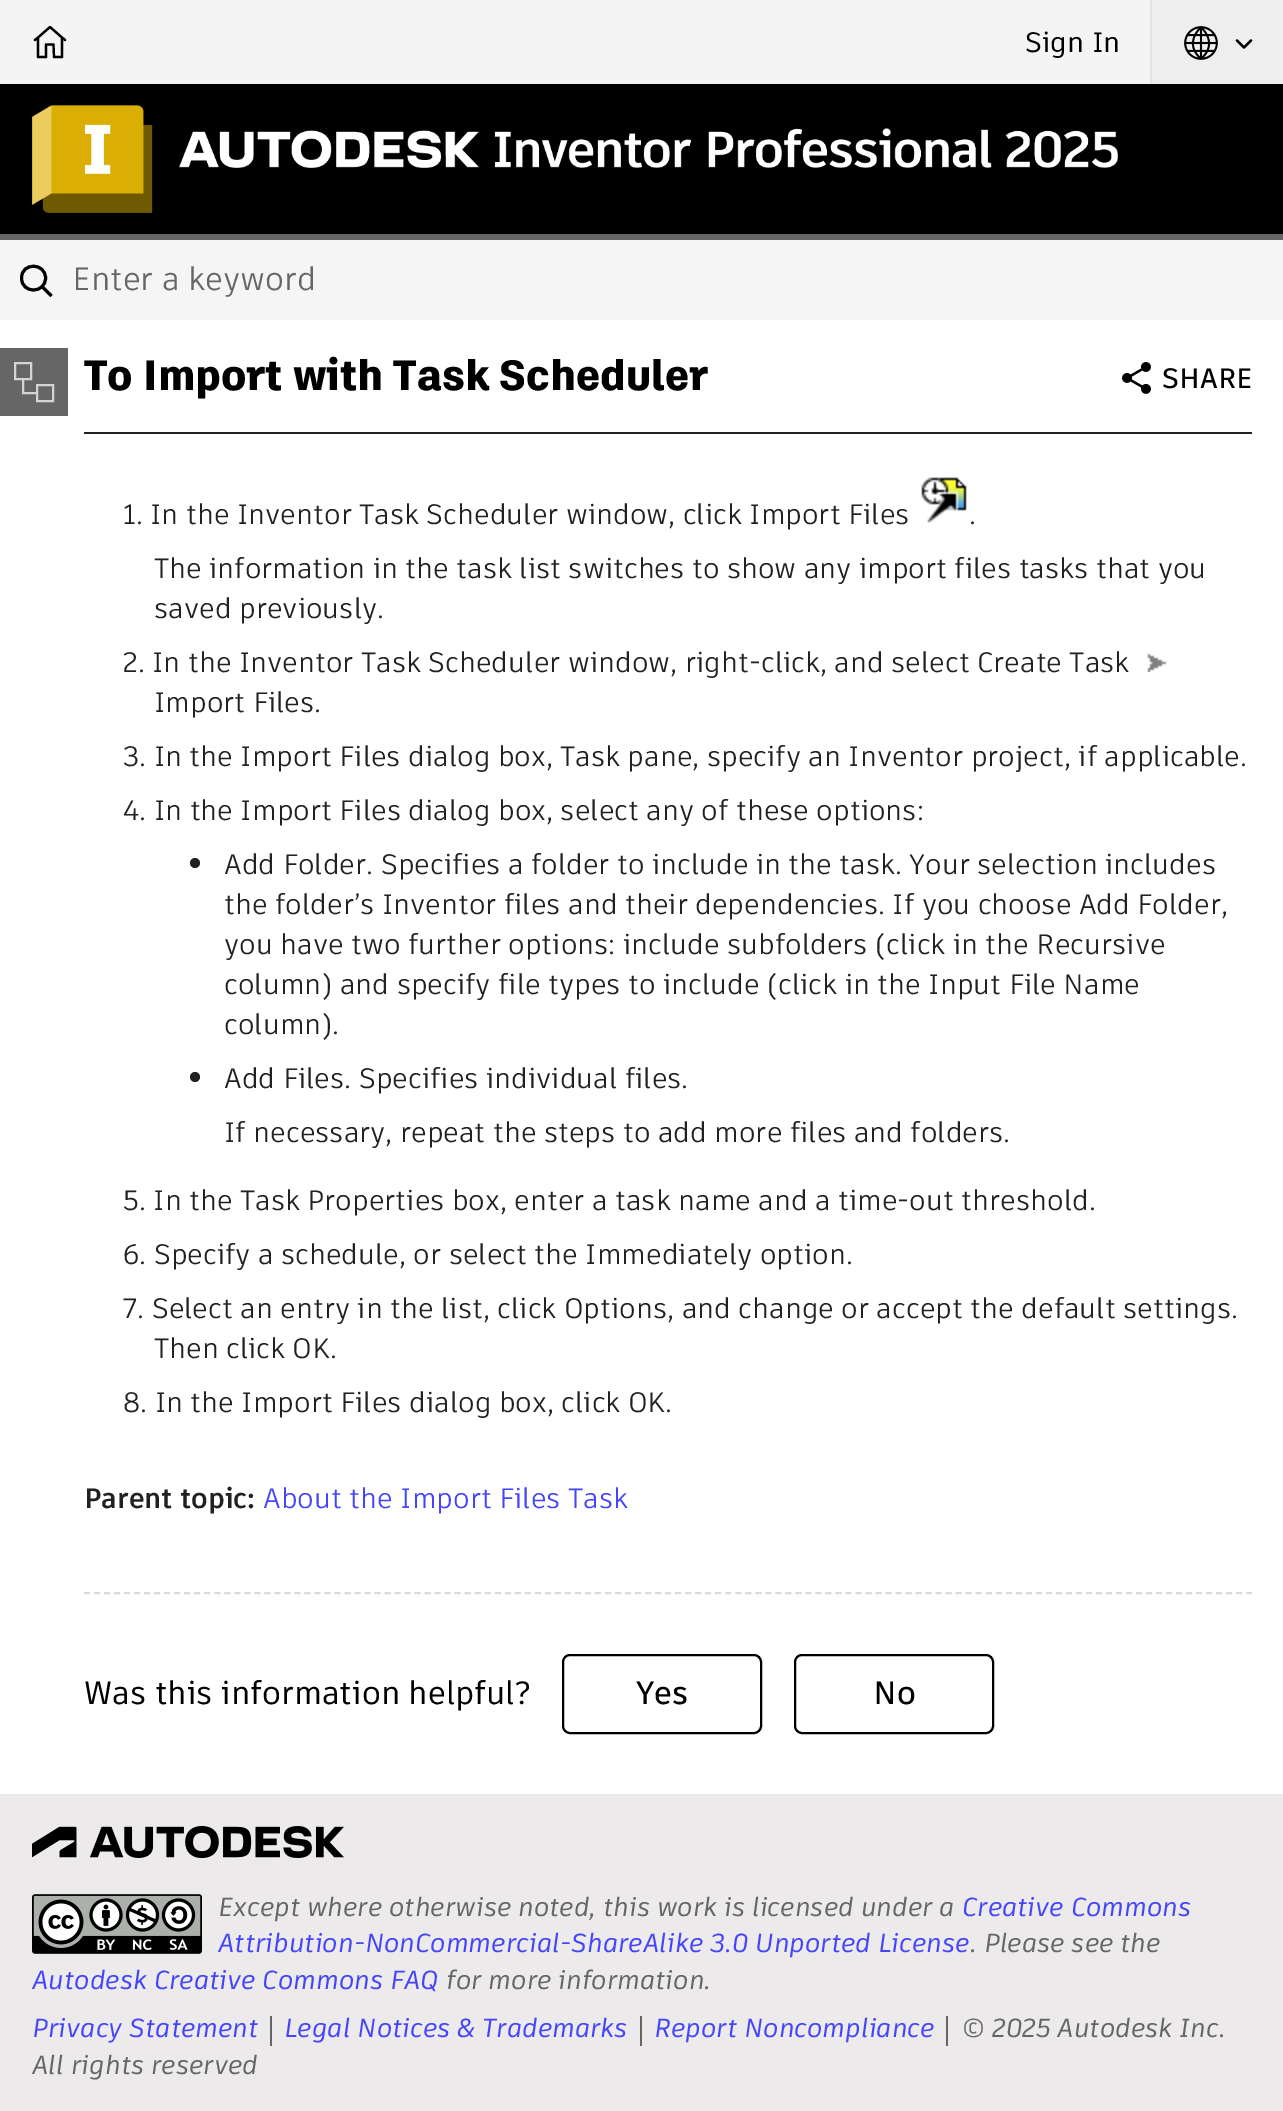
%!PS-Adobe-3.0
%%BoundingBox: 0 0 1283 2111
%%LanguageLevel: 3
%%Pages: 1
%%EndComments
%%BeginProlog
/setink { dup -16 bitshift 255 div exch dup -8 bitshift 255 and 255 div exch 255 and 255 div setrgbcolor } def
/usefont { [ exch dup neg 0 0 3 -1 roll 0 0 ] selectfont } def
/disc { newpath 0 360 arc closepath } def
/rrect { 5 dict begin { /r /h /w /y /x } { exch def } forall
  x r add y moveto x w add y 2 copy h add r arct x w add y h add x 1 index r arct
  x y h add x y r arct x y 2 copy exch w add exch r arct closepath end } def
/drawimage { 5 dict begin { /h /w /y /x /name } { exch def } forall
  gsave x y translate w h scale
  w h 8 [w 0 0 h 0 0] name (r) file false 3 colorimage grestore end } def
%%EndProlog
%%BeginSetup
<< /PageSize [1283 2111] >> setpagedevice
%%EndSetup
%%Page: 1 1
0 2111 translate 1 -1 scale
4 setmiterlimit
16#FFFFFF setink
0 0 1283 2111 rectfill
16#F4F4F4 setink
0 0 1150 84 rectfill
16#000000 setink
2.2 setlinewidth
1 setlinecap
1 setlinejoin
35 40 moveto 38 37.5 lineto 38 37.5 moveto 50 27 lineto 62 37.5 lineto 38 37.5 moveto 38 57 lineto 46 57 lineto 46 44.5 lineto 53.5 44.5 lineto 54 57 lineto 62 57 lineto 62 37.5 lineto 62 37.5 moveto 65 40 lineto stroke
/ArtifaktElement-Medium 28 usefont
1025 52 moveto (Sign In) show
16#EEEEEE setink
1152 0 131 84 rectfill
16#E4E4E4 setink
1150 0 2 84 rectfill
(img1.raw) 1184 26 34 34 drawimage
16#000000 setink
1251 40.5 moveto 1244 47.5 lineto 1237 40.5 lineto stroke
0 84 1283 150 rectfill
16#666666 setink
0 234 1283 6 rectfill
(img2.raw) 32 105 1086 108 drawimage
16#F5F5F5 setink
0 240 1283 80 rectfill
16#000000 setink
3 setlinewidth
0 setlinecap
0 setlinejoin
42 286.5 moveto 51.5 296 lineto 45.5 278 moveto 45.5 294 21.5 294 21.5 278 curveto 21.5 262 45.5 262.5 45.5 278 curveto closepath stroke
/ArtifaktElement-Regular 32 usefont
16#666666 setink
72 290 moveto (Enter a keyword) show
0 348 68 68 rectfill
16#D4D4D4 setink
2 setlinewidth
23 379 moveto 15 379 lineto 15 363 lineto 31 363 lineto 31 379 lineto 23 379 lineto 23 393 lineto 37 393 lineto 37 401 lineto 53 401 lineto 53 385 lineto 37 385 lineto 37 393 lineto stroke
16#212121 setink
84 432 1168 2 rectfill
/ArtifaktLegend-ExtraBold 42 usefont
16#000000 setink
84 390 moveto (To Import with Task Scheduler) show
/ArtifaktElement-Regular 28 usefont
16#212121 setink
123 524 moveto (1. In the Inventor Task Scheduler window, click Import Files) show
(img3.raw) 921 477 46 46 drawimage
[
    [(.) 969 524]
    [(The information in the task list switches to show any import files tasks that you) 154 578]
    [(saved previously.) 154 618]
    [(2. In the Inventor Task Scheduler window, right-click, and select Create Task) 123 672]
] { aload pop moveto show } forall
(img4.raw) 1147 653 20 19 drawimage
[
    [(Import Files.) 154 712]
    [(3. In the Import Files dialog box, Task pane, specify an Inventor project, if applicable.) 123 766]
    [(4. In the Import Files dialog box, select any of these options:) 123 820]
] { aload pop moveto show } forall
195 863 5 disc fill
[
    [(Add Folder. Specifies a folder to include in the task. Your selection includes) 224 874]
    [(the folder’s Inventor files and their dependencies. If you choose Add Folder,) 224 914]
    [(you have two further options: include subfolders \(click in the Recursive) 224 954]
    [(column\) and specify file types to include \(click in the Input File Name) 224 994]
    [(column\).) 224 1034]
] { aload pop moveto show } forall
195 1077 5 disc fill
[
    [(Add Files. Specifies individual files.) 224 1088]
    [(If necessary, repeat the steps to add more files and folders.) 224 1142]
    [(5. In the Task Properties box, enter a task name and a time-out threshold.) 123 1210]
    [(6. Specify a schedule, or select the Immediately option.) 123 1264]
    [(7. Select an entry in the list, click Options, and change or accept the default settings.) 123 1318]
    [(Then click OK.) 154 1358]
    [(8. In the Import Files dialog box, click OK.) 123 1412]
] { aload pop moveto show } forall
/ArtifaktElement-Bold 28 usefont
84 1508 moveto (Parent topic:) show
/ArtifaktElement-Regular 28 usefont
16#4444F8 setink
263 1508 moveto (About the Import Files Task) show
(img5.raw) 1122 362 29 32 drawimage
/ArtifaktElement-SemiBold 28 usefont
16#000000 setink
1162 388 moveto (SHARE) show
16#DADADA setink
[6 4.02] 0 setdash
84 1593 moveto 1252 1593 lineto stroke
/ArtifaktElement-Medium 32 usefont
16#000000 setink
84 1704 moveto (Was this information helpful?) show
[] 0 setdash
563 1655 198 78 7 rrect stroke
/ArtifaktElement-SemiBold 32 usefont
636 1704 moveto (Yes) show
795 1655 198 78 7 rrect stroke
873 1704 moveto (No) show
16#ECEAEA setink
0 1794 1283 317 rectfill
(img6.raw) 32 1826 312 32 drawimage
(img7.raw) 32 1894 170 60 drawimage
/ArtifaktElement-MediumItalic 26 usefont
16#666666 setink
218 1916 moveto (Except where otherwise noted, this work is licensed under a) show
16#4444F8 setink
962 1916 moveto (Creative Commons) show
218 1952 moveto (Attribution-NonCommercial-ShareAlike 3.0 Unported License) show
16#666666 setink
970 1952 moveto (. Please see the) show
16#4444F8 setink
32 1989 moveto (Autodesk Creative Commons FAQ) show
16#666666 setink
446 1989 moveto (for more information.) show
16#4444F8 setink
32 2037 moveto (Privacy Statement) show
16#666666 setink
270 2016 2 30 rectfill
16#4444F8 setink
284 2037 moveto (Legal Notices & Trademarks) show
16#666666 setink
640 2016 2 30 rectfill
16#4444F8 setink
654 2037 moveto (Report Noncompliance) show
16#666666 setink
946 2016 2 30 rectfill
961 2037 moveto (© 2025 Autodesk Inc.) show
32 2074 moveto (All rights reserved) show
showpage
%%EOF
